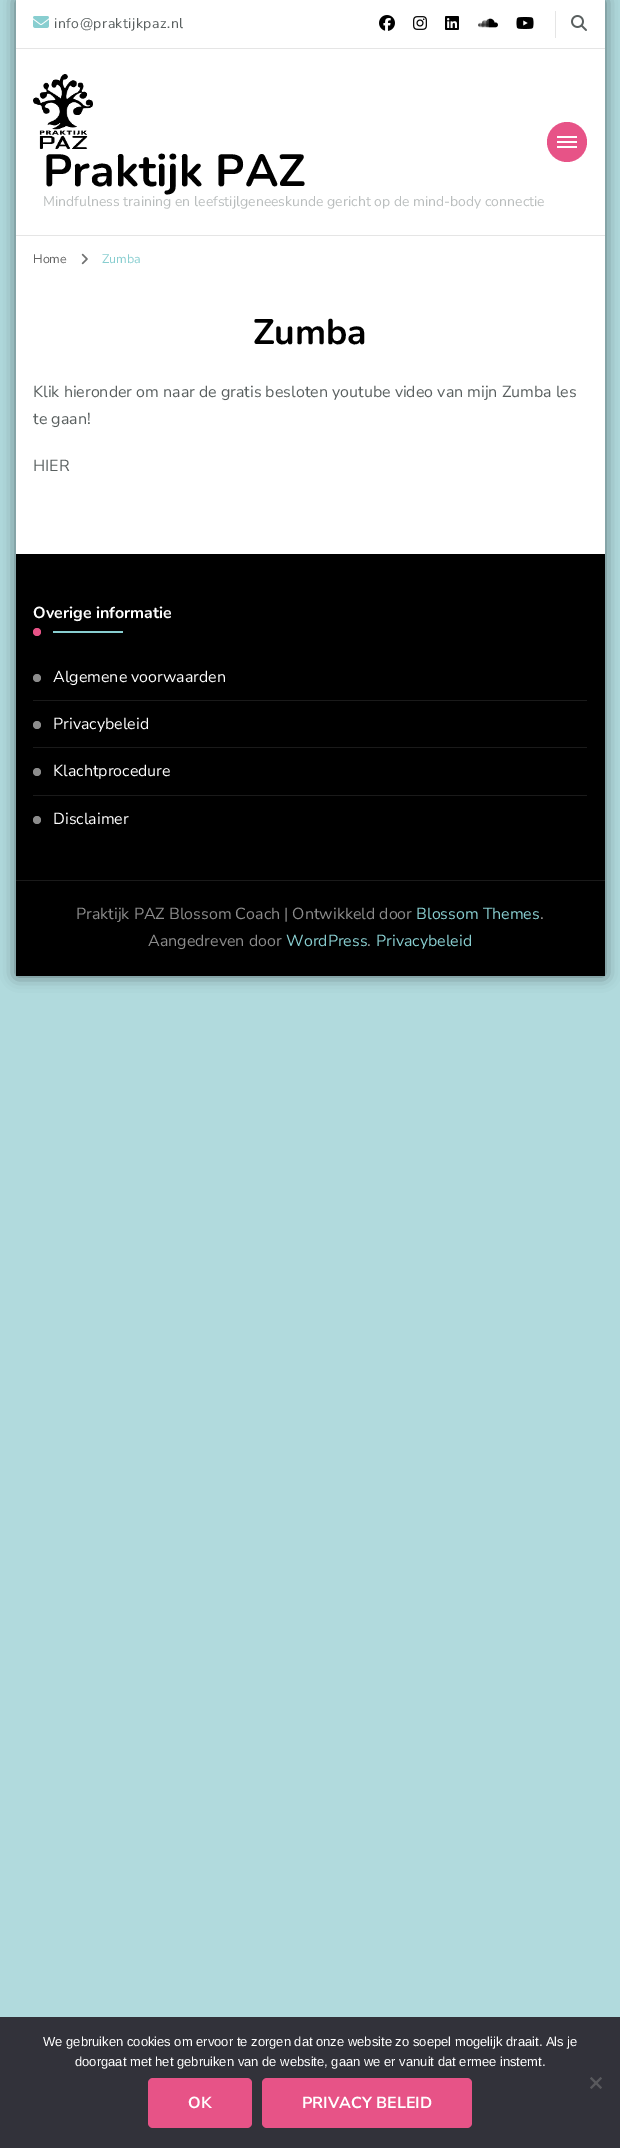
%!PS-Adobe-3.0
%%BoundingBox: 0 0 620 2148
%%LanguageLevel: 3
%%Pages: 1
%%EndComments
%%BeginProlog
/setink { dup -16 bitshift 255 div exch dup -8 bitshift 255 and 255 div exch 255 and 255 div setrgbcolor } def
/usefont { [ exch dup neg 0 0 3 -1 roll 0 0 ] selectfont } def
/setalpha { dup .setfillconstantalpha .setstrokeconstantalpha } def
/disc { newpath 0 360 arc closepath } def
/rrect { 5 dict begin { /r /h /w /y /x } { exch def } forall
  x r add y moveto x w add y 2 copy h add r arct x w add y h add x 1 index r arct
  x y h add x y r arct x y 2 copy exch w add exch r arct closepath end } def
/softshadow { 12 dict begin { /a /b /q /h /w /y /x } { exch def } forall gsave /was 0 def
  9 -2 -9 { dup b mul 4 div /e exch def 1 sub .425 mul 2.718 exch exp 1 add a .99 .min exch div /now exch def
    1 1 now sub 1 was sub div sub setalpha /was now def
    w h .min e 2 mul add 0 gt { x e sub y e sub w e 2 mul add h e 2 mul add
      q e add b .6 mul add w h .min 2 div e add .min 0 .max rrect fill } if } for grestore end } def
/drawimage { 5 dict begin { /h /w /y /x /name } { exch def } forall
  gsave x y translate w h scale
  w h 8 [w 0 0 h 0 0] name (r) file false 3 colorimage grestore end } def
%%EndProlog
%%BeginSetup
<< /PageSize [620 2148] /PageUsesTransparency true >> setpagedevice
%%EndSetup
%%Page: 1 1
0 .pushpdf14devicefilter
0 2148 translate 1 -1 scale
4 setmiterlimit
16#B1DADD setink
0 0 620 2148 rectfill
16#000000 setink
16 0 589 976 0 7.5 0.5 softshadow
[
    [16 0 589 554 16#FFFFFF]
    [16 235 589 1 16#E5E5E5]
    [16 48 589 1 16#E5E5E5]
] { aload pop setink rectfill } forall
(img1.raw) 33 16 16 12 drawimage
/NunitoSans-Regular 14 usefont
16#595F5F setink
54 28 moveto 0.5 0 (info@praktijkpaz.nl) ashow
(img2.raw) 379 15 16 16 drawimage
(img3.raw) 413 16 14 14 drawimage
(img4.raw) 445 16 14 14 drawimage
(img5.raw) 478 18 20 10 drawimage
(img6.raw) 516 17 18 12 drawimage
16#E5E5E5 setink
555 11 1 27 rectfill
(img7.raw) 571 15 16 16 drawimage
16#E75387 setink
567 142 20 disc fill
[
    [557 136 20 2 16#FFFFFF]
    [557 141 20 2 16#FFFFFF]
    [557 146 20 2 16#FFFFFF]
] { aload pop setink rectfill } forall
(img8.raw) 33 74 60 75 drawimage
/Nunito-Bold 45 usefont
16#000000 setink
43 186 moveto (Praktijk PAZ) show
/NunitoSans-Regular 14 usefont
16#B9BDBD setink
43 206 moveto (Mindfulness training en leefstijlgeneeskunde gericht op de mind-body connectie) show
/NunitoSans-Regular 12.5 usefont
16#666666 setink
33 263 moveto (Home) show
(img9.raw) 81 253 7 12 drawimage
16#88CED0 setink
102 263 moveto (Zumba) show
/Nunito-Bold 35.5 usefont
16#000000 setink
253 344 moveto (Zumba) show
/NunitoSans-Regular 16 usefont
16#595F5F setink
[
    [(Klik hieronder om naar de gratis besloten youtube video van mijn Zumba les) 33 397]
    [(te gaan!) 33 424]
    [(HIER) 33 471]
] { aload pop moveto show } forall
16#000000 setink
16 554 589 326 rectfill
/Nunito-Bold 16 usefont
16#FFFFFF setink
33 618 moveto (Overige informatie) show
16#E75387 setink
37 632 4 disc fill
16#88CED0 setink
53 631 70 2 rectfill
16#1A1A1A setink
33 700 554 1 rectfill
16#8C8C8C setink
37 678 4 disc fill
/NunitoSans-Regular 16 usefont
16#FFFFFF setink
53 682 moveto (Algemene voorwaarden) show
16#1A1A1A setink
33 747 554 1 rectfill
16#8C8C8C setink
37 725 4 disc fill
16#FFFFFF setink
53 729 moveto (Privacybeleid) show
16#1A1A1A setink
33 795 554 1 rectfill
16#8C8C8C setink
37 772 4 disc fill
16#FFFFFF setink
53 776 moveto (Klachtprocedure) show
16#8C8C8C setink
37 820 4 disc fill
16#FFFFFF setink
53 824 moveto (Disclaimer) show
16#000000 setink
16 881 589 95 rectfill
16#1A1A1A setink
16 880 589 1 rectfill
16#8C8C8C setink
76 919 moveto (Praktijk PAZ Blossom Coach | Ontwikkeld door) show
16#88CED0 setink
416 919 moveto (Blossom Themes) show
16#8C8C8C setink
540 919 moveto (.) show
148 946 moveto (Aangedreven door) show
16#88CED0 setink
286 946 moveto (WordPress) show
16#8C8C8C setink
367 946 moveto (.) show
16#88CED0 setink
376 946 moveto (Privacybeleid) show
16#32323A setink
0 2017 620 131 rectfill
/LiberationSans-Regular 13 usefont
16#FFFFFF setink
43 2046 moveto (We gebruiken cookies om ervoor te zorgen dat onze website zo soepel mogelijk draait. Als je) show
75 2066 moveto (doorgaat met het gebruiken van de website, gaan we er vanuit dat ermee instemt.) show
16#59595D setink
600.5 2077 moveto 602 2078.5 lineto 591.5 2089 lineto 590 2087.5 lineto closepath fill
590 2078.5 moveto 591.5 2077 lineto 602 2087.5 lineto 600.5 2089 lineto closepath fill
16#E75387 setink
148 2078 104 50 5 rrect fill
/NunitoSans-Bold 16 usefont
16#FFFFFF setink
188 2108 moveto (OK) show
16#E75387 setink
262 2078 210 50 5 rrect fill
16#FFFFFF setink
302 2108 moveto (PRIVACY BELEID) show
.poppdf14devicefilter showpage
%%EOF
